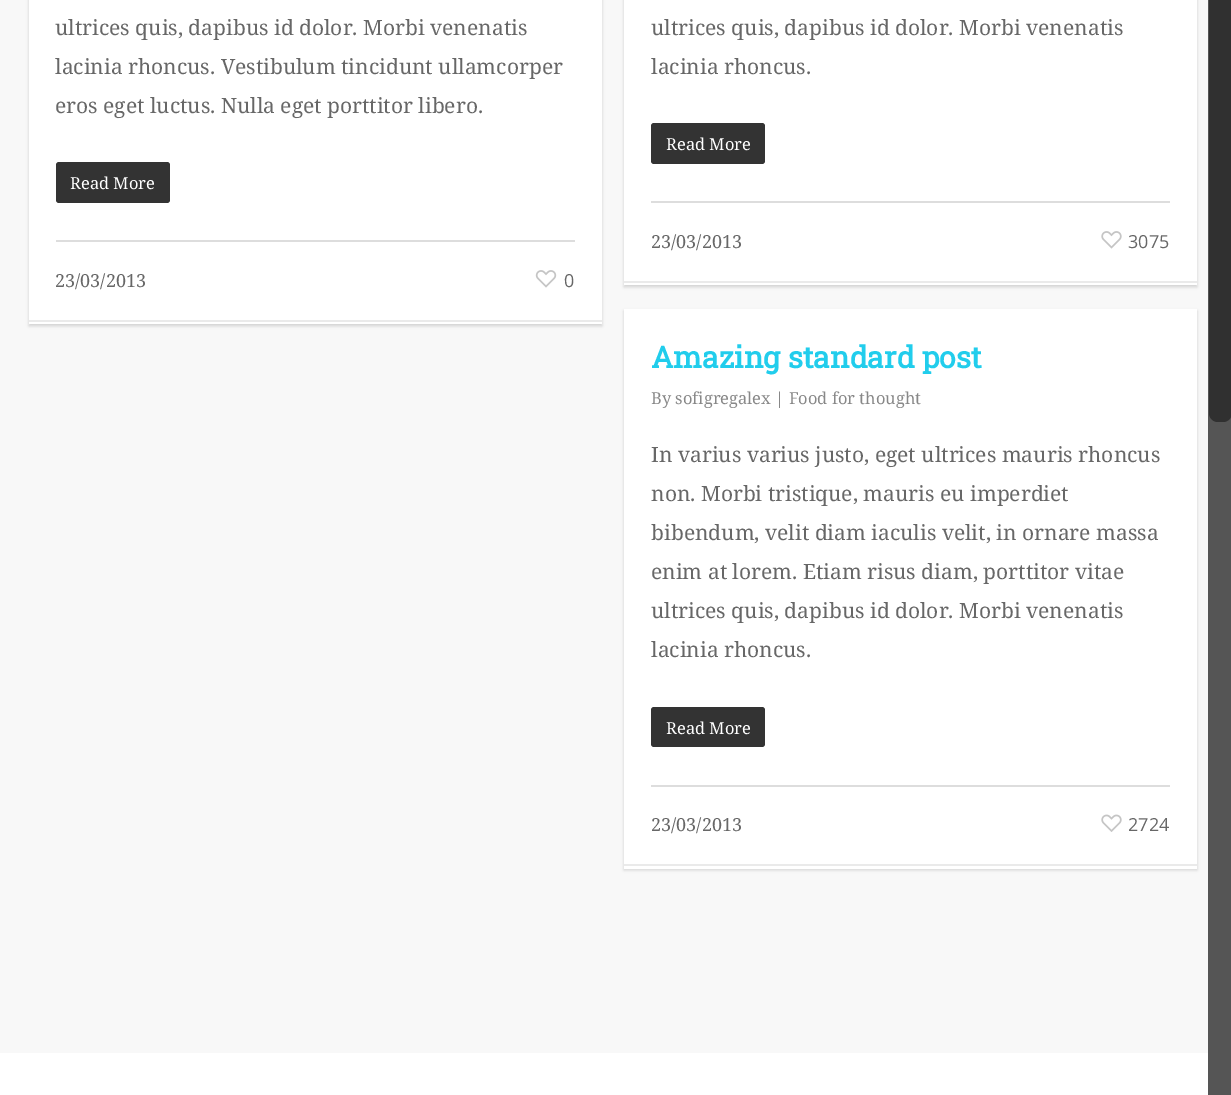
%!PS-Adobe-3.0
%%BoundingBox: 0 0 1231 1095
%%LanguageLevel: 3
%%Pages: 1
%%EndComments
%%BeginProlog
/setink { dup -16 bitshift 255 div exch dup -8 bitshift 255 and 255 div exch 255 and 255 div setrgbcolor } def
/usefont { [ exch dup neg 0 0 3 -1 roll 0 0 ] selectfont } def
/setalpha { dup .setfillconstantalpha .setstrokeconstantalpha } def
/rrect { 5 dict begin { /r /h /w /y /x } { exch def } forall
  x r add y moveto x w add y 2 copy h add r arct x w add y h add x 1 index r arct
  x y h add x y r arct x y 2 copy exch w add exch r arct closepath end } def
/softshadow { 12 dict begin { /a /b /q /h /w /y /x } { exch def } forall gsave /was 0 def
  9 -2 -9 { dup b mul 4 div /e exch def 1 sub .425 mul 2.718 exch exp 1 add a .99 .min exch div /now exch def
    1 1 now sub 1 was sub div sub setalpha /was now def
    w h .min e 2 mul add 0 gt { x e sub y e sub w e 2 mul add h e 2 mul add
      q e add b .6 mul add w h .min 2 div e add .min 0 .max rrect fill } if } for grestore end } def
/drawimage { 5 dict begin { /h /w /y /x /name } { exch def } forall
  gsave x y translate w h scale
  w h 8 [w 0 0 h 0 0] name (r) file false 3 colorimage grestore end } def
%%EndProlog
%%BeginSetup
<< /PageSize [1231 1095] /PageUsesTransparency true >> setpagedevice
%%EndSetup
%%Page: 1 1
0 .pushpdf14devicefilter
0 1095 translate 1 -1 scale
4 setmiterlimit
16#F8F8F8 setink
0 0 1231 1095 rectfill
16#000000 setink
29 -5 573 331 0 1.5 0.15 softshadow
16#FFFFFF setink
29 0 573 324 rectfill
16#DDDDDD setink
56 240 519 2 rectfill
/NotoSerif-Regular 21 usefont
16#676767 setink
[
    [(ultrices quis, dapibus id dolor. Morbi venenatis) 55 35]
    [(lacinia rhoncus. Vestibulum tincidunt ullamcorper) 55 74]
    [(eros eget luctus. Nulla eget porttitor libero.) 55 113]
] { aload pop moveto show } forall
16#333333 setink
56 162 114 41 3 rrect fill
/NotoSerif-Regular 16.5 usefont
16#FFFFFF setink
70 189 moveto (Read More) show
/NotoSerif-Regular 18 usefont
16#676767 setink
55 287 moveto (23/03/2013) show
(img1.raw) 535 270 22 18 drawimage
/OpenSans-Regular 18 usefont
564 287 moveto (0) show
16#EAEAEA setink
29 320 573 2 rectfill
16#000000 setink
624 -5 573 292 0 1.5 0.15 softshadow
16#FFFFFF setink
624 0 573 285 rectfill
16#DDDDDD setink
651 201 519 2 rectfill
/NotoSerif-Regular 21 usefont
16#676767 setink
651 35 moveto (ultrices quis, dapibus id dolor. Morbi venenatis) show
651 74 moveto (lacinia rhoncus.) show
16#333333 setink
651 123 114 41 3 rrect fill
/NotoSerif-Regular 16.5 usefont
16#FFFFFF setink
666 150 moveto (Read More) show
/NotoSerif-Regular 18 usefont
16#676767 setink
651 248 moveto (23/03/2013) show
(img2.raw) 1101 231 21 18 drawimage
/OpenSans-Regular 18 usefont
1128 248 moveto (3075) show
16#EAEAEA setink
624 281 573 2 rectfill
16#000000 setink
624 311 573 559 0 1.5 0.15 softshadow
16#FFFFFF setink
624 309 573 560 rectfill
16#DDDDDD setink
651 785 519 2 rectfill
/RobotoSlab-Bold 30 usefont
16#21CDEC setink
651 368 moveto (Amazing standard post) show
/NotoSerif-Regular 16.5 usefont
16#888888 setink
651 404 moveto (By sofigregalex | Food for thought) show
/NotoSerif-Regular 21 usefont
16#676767 setink
[
    [(In varius varius justo, eget ultrices mauris rhoncus) 651 462]
    [(non. Morbi tristique, mauris eu imperdiet) 651 501]
    [(bibendum, velit diam iaculis velit, in ornare massa) 651 540]
    [(enim at lorem. Etiam risus diam, porttitor vitae) 651 579]
    [(ultrices quis, dapibus id dolor. Morbi venenatis) 651 618]
    [(lacinia rhoncus.) 651 657]
] { aload pop moveto show } forall
16#333333 setink
651 707 114 40 3 rrect fill
/NotoSerif-Regular 16.5 usefont
16#FFFFFF setink
666 734 moveto (Read More) show
/NotoSerif-Regular 18 usefont
16#676767 setink
651 831 moveto (23/03/2013) show
(img3.raw) 1101 814 21 18 drawimage
/OpenSans-Regular 18 usefont
1128 831 moveto (2724) show
[
    [624 864 573 2 16#EAEAEA]
    [0 1053 1208 42 16#FFFFFF]
    [1208 0 23 1095 16#555555]
] { aload pop setink rectfill } forall
16#303030 setink
1209 -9 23 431 9 rrect fill
.poppdf14devicefilter showpage
%%EOF
